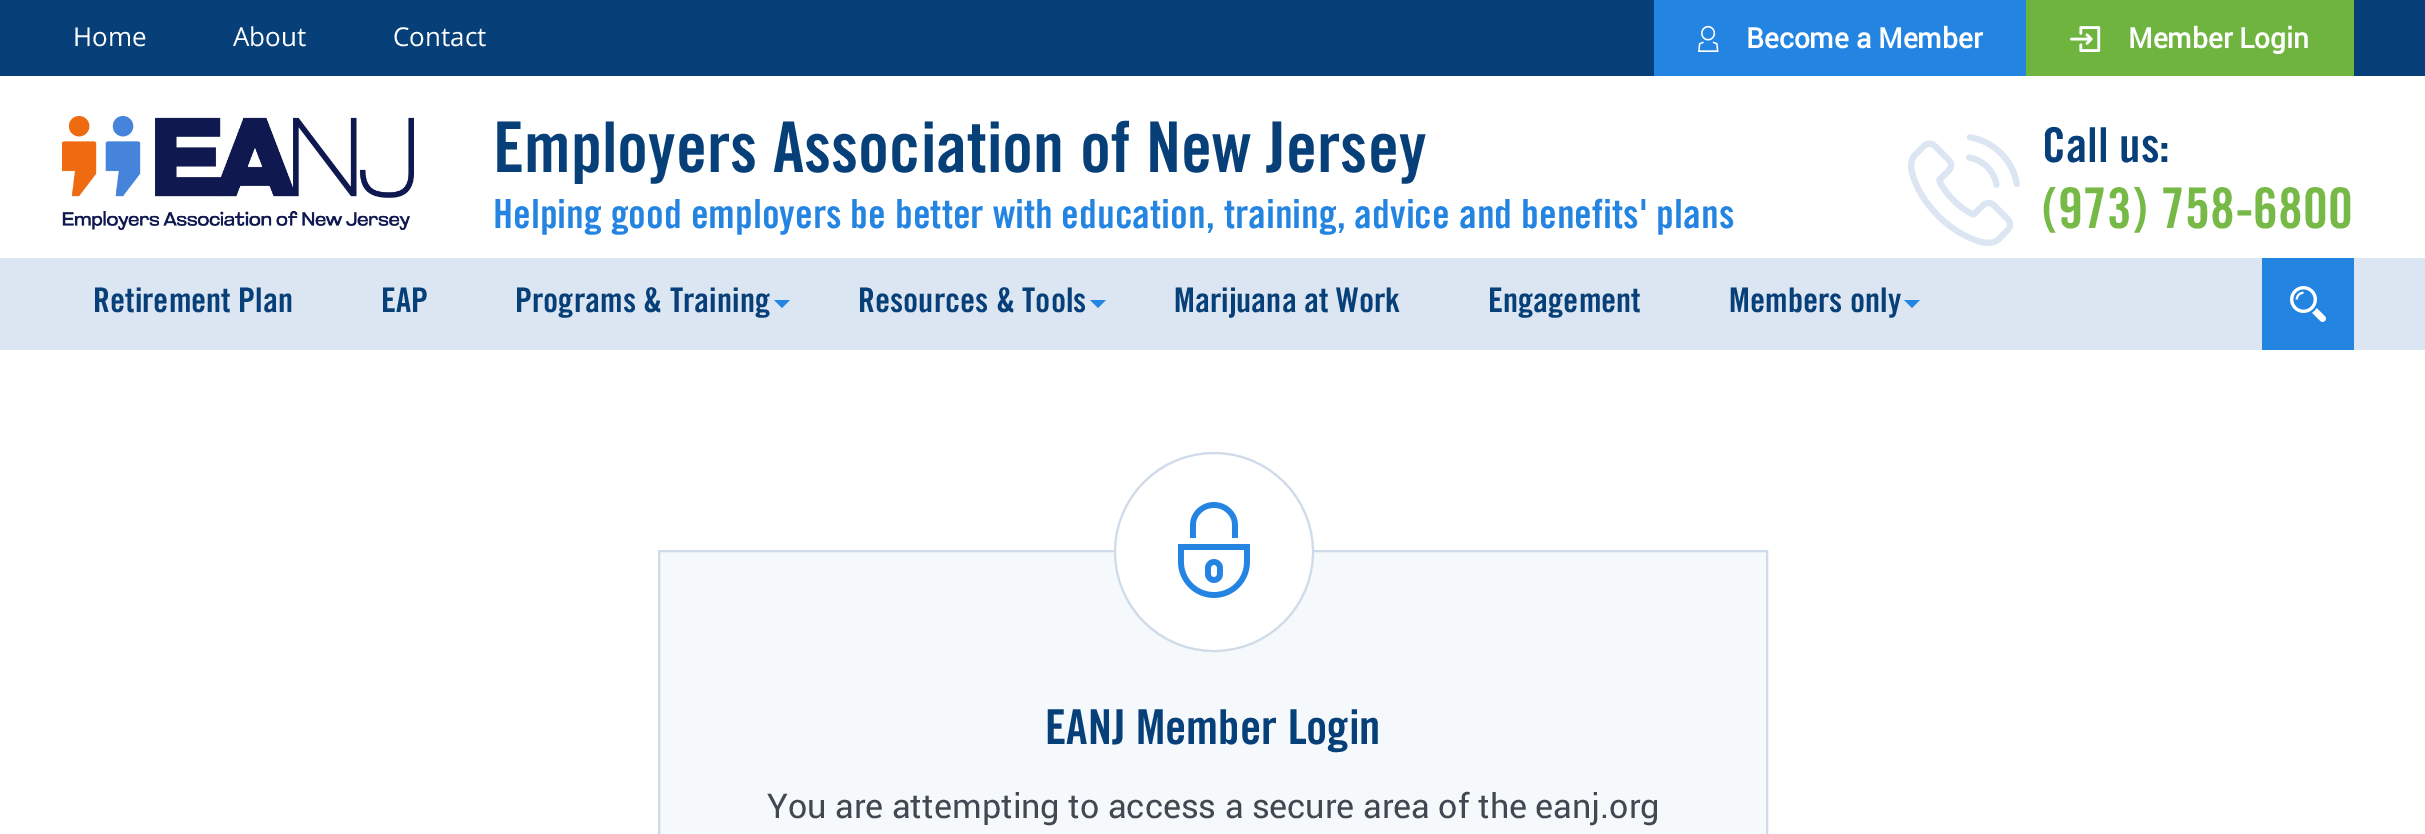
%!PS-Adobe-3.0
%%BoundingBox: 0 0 2425 834
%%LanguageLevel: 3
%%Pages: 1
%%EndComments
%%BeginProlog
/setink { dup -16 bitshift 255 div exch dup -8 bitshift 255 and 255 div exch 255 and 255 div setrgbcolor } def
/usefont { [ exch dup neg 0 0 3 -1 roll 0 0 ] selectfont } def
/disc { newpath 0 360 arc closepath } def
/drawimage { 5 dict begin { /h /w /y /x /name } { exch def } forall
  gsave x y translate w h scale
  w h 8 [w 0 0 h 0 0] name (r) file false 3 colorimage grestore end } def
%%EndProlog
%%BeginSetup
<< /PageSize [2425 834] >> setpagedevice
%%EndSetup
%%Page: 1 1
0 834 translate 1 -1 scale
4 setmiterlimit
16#FFFFFF setink
0 0 2425 834 rectfill
16#073F78 setink
0 0 2425 76 rectfill
/OpenSans-Regular 26 usefont
16#FFFFFF setink
[
    [(Home) 73 46]
    [(About) 233 46]
    [(Contact) 393 46]
] { aload pop moveto show } forall
16#2484E2 setink
1654 0 372 76 rectfill
(img1.raw) 1698 25 21 27 drawimage
/Roboto-Bold 28 usefont
16#FFFFFF setink
1746 48 moveto (Become a Member) show
16#6EB43F setink
2026 0 328 76 rectfill
(img2.raw) 2070 26 31 26 drawimage
16#FFFFFF setink
2128 48 moveto (Member Login) show
(img3.raw) 62 116 352 114 drawimage
/TradeGothic-Regular 70 usefont
16#073F78 setink
493 172 moveto (Employers Association of New Jersey) show
/TradeGothic-Regular 40 usefont
16#2484E2 setink
493 228 moveto (Helping good employers be better with education, training, advice and benefits' plans) show
(img4.raw) 1908 134 112 112 drawimage
/TradeGothic-Regular 48 usefont
16#073F78 setink
2042 162 moveto (Call us:) show
/TradeGothic-Regular 56 usefont
16#77B946 setink
2042 228 moveto (\(973\) 758-6800) show
16#DCE6F2 setink
0 258 2425 92 rectfill
/TradeGothic-Regular 34 usefont
16#073F78 setink
[
    [(Retirement Plan) 93 312]
    [(EAP) 381 312]
    [(Programs & Training) 515 312]
] { aload pop moveto show } forall
16#2484E2 setink
774 300 moveto 790 300 lineto 782 308 lineto closepath fill
16#073F78 setink
858 312 moveto (Resources & Tools) show
16#2484E2 setink
1090 300 moveto 1106 300 lineto 1098 308 lineto closepath fill
16#073F78 setink
[
    [(Marijuana at Work) 1174 312]
    [(Engagement) 1488 312]
    [(Members only) 1729 312]
] { aload pop moveto show } forall
16#2484E2 setink
1904 300 moveto 1920 300 lineto 1912 308 lineto closepath fill
2262 258 92 92 rectfill
(img5.raw) 2290 286 36 36 drawimage
16#F5F9FC setink
659 551 moveto 1767 551 lineto 1767 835 lineto 659 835 lineto closepath gsave fill grestore
16#CFDBE8 setink
2 setlinewidth
stroke
16#FFFFFF setink
1214 552 99 disc gsave fill grestore
16#CFDBE8 setink
stroke
(img6.raw) 1177 502 73 96 drawimage
/TradeGothic-Regular 48 usefont
16#073F78 setink
1045 744 moveto (EANJ Member Login) show
/Roboto-Regular 34 usefont
16#424852 setink
767 818 moveto (You are attempting to access a secure area of the eanj.org) show
showpage
%%EOF
